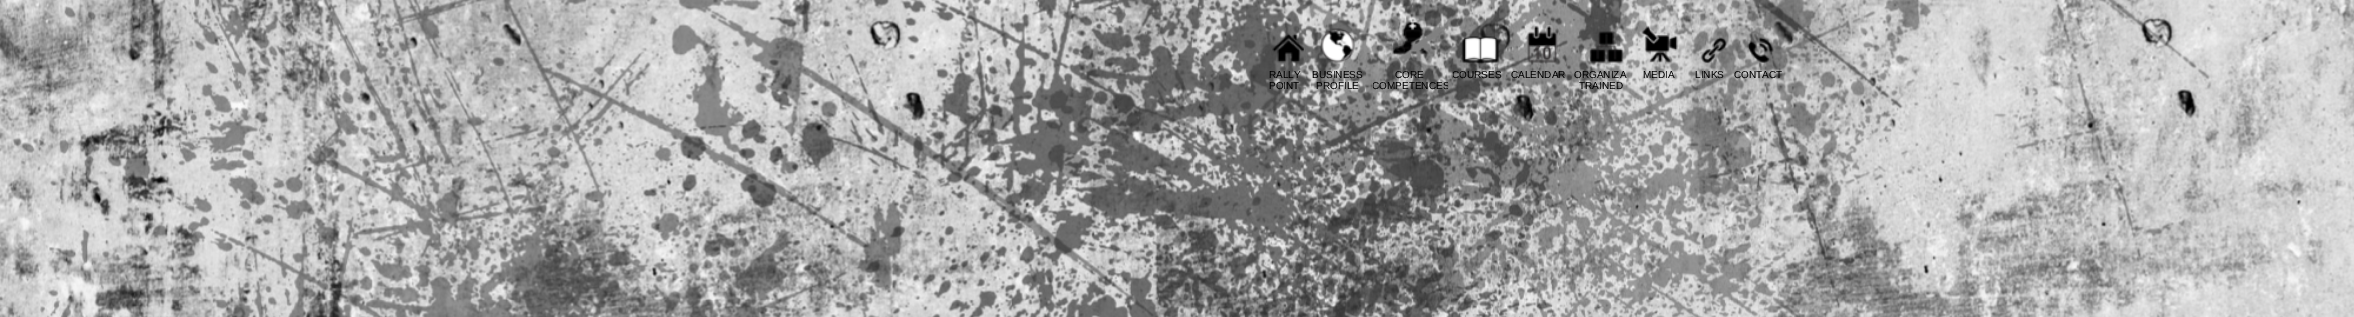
%!PS-Adobe-3.0
%%BoundingBox: 0 0 2354 317
%%LanguageLevel: 3
%%Pages: 1
%%EndComments
%%BeginProlog
/setink { dup -16 bitshift 255 div exch dup -8 bitshift 255 and 255 div exch 255 and 255 div setrgbcolor } def
/usefont { [ exch dup neg 0 0 3 -1 roll 0 0 ] selectfont } def
/drawimage { 5 dict begin { /h /w /y /x /name } { exch def } forall
  gsave x y translate w h scale
  w h 8 [w 0 0 h 0 0] name (r) file false 3 colorimage grestore end } def
%%EndProlog
%%BeginSetup
<< /PageSize [2354 317] >> setpagedevice
%%EndSetup
%%Page: 1 1
0 317 translate 1 -1 scale
4 setmiterlimit
16#FFFFFF setink
0 0 2354 317 rectfill
(img1.raw) 0 0 2354 317 drawimage
(img2.raw) 1272 33 32 30 drawimage
/LiberationSans-Regular 10 usefont
16#000000 setink
1269 78 moveto (RALLY) show
1269 89 moveto (POINT) show
(img3.raw) 1320 28 36 35 drawimage
1312 78 moveto (BUSINESS) show
1316 89 moveto (PROFILE) show
(img4.raw) 1392 22 55 43 drawimage
1395 78 moveto (CORE) show
gsave
1373 13 75 80 rectclip
1372 89 moveto (COMPETENCES) show
grestore
(img5.raw) 1461 36 39 29 drawimage
gsave
1453 13 50 68 rectclip
1452 78 moveto (COURSES) show
grestore
(img6.raw) 1527 25 31 38 drawimage
1511 78 moveto (CALENDAR) show
(img7.raw) 1589 31 35 32 drawimage
1574 78 moveto (ORGANIZA) show
1579 89 moveto (TRAINED) show
(img8.raw) 1641 25 37 38 drawimage
1643 78 moveto (MEDIA) show
(img9.raw) 1700 37 27 27 drawimage
1695 78 moveto (LINKS) show
(img10.raw) 1747 37 27 27 drawimage
1734 78 moveto (CONTACT) show
showpage
%%EOF
